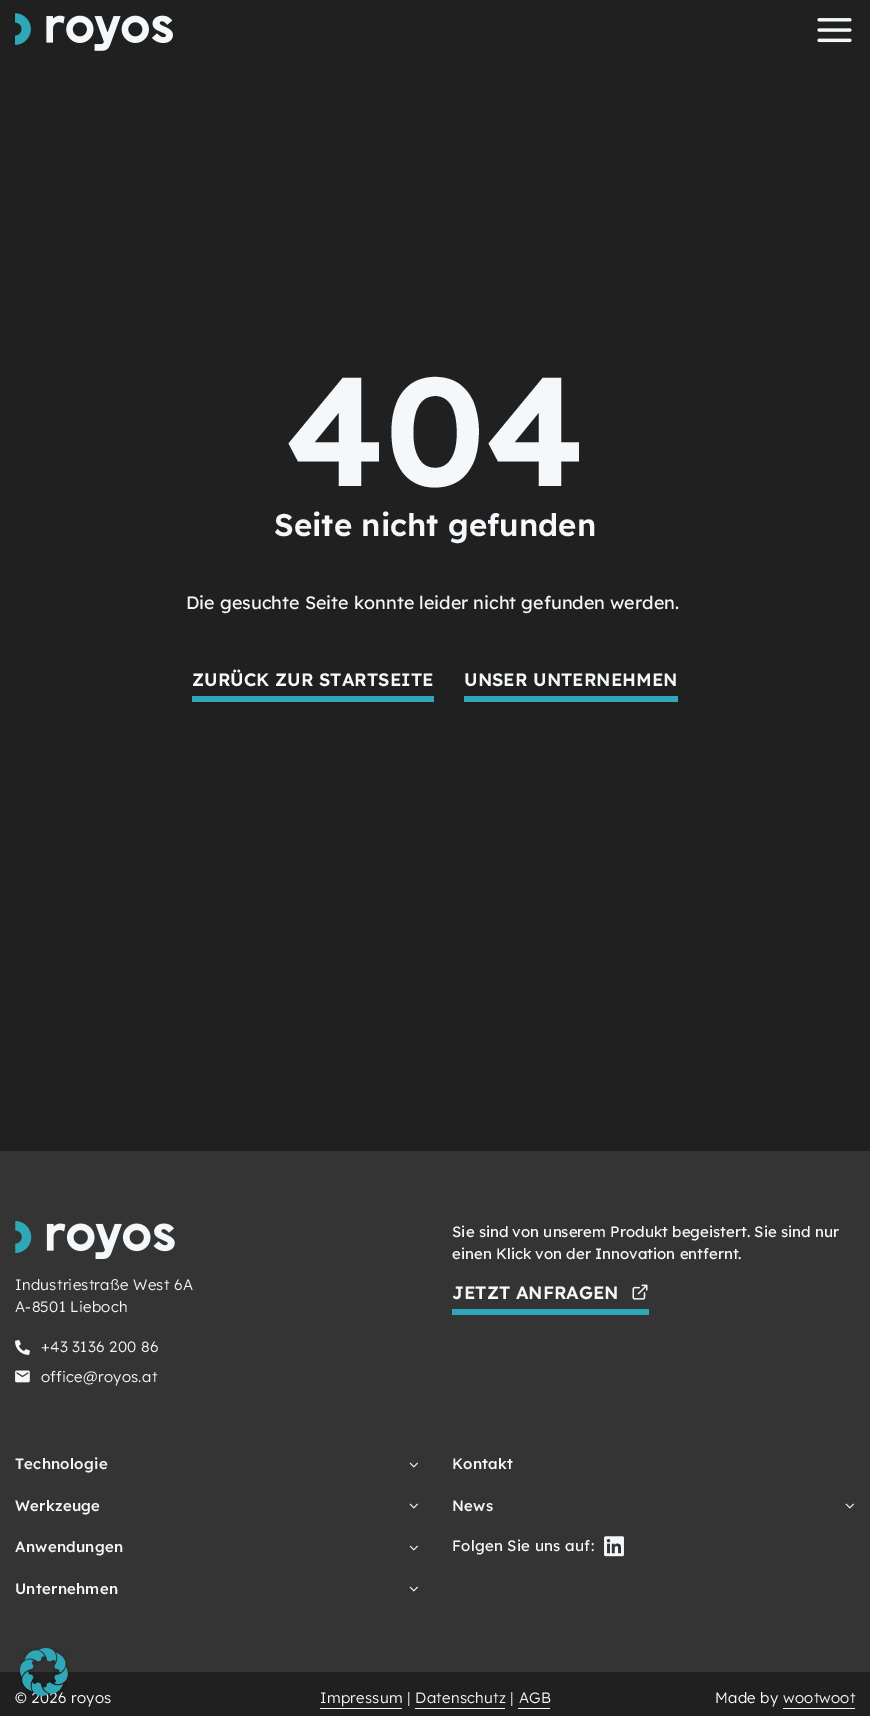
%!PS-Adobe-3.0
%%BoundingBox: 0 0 870 1716
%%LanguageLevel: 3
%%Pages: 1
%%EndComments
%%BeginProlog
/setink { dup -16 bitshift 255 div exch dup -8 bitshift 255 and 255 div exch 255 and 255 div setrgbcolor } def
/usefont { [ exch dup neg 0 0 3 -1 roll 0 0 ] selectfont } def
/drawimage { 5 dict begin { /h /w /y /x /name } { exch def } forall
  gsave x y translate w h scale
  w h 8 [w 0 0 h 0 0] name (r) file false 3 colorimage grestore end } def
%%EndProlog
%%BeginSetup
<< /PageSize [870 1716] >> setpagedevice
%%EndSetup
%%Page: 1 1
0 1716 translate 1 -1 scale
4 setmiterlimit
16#202020 setink
0 0 870 1716 rectfill
(img1.raw) 15 13 158 38 drawimage
(img2.raw) 817 18 35 25 drawimage
/Lexend-SemiBold 154 usefont
16#F4F8FA setink
285 486 moveto (404) show
/Lexend-SemiBold 31.1 usefont
274 536 moveto (Seite nicht gefunden) show
/Lexend-Regular 18 usefont
186 609 moveto (Die gesuchte Seite konnte leider nicht gefunden werden.) show
16#2EA7B7 setink
192 696 242 6 rectfill
/Lexend-SemiBold 18 usefont
16#F4F8FA setink
192 686 moveto (ZURÜCK ZUR STARTSEITE) show
16#2EA7B7 setink
464 696 214 6 rectfill
16#F4F8FA setink
464 686 moveto (UNSER UNTERNEHMEN) show
16#343434 setink
0 1151 870 521 rectfill
/Lexend-Regular 15 usefont
16#F4F8FA setink
452 1237 moveto (Sie sind von unserem Produkt begeistert. Sie sind nur) show
452 1259 moveto (einen Klick von der Innovation entfernt.) show
16#2EA7B7 setink
452 1309 197 6 rectfill
/Lexend-SemiBold 18 usefont
16#F4F8FA setink
452 1299 moveto (JETZT ANFRAGEN) show
(img3.raw) 632 1284 16 16 drawimage
(img4.raw) 15 1221 160 38 drawimage
/Lexend-Light 15 usefont
15 1290 moveto 0.25 0 (Industriestraße West 6A) ashow
15 1312 moveto 0.25 0 (A-8501 Lieboch) ashow
(img5.raw) 15 1340 15 15 drawimage
41 1352 moveto 0.25 0 (+43 3136 200 86) ashow
(img6.raw) 15 1370 15 13 drawimage
41 1382 moveto 0.25 0 (office@royos.at) ashow
/Lexend-Medium 15 usefont
15 1469 moveto 0.25 0 (Technologie) ashow
(img7.raw) 409 1462 9 6 drawimage
15 1511 moveto 0.25 0 (Werkzeuge) ashow
(img7.raw) 409 1503 9 6 drawimage
15 1552 moveto 0.25 0 (Anwendungen) ashow
(img7.raw) 409 1545 9 6 drawimage
15 1594 moveto 0.25 0 (Unternehmen) ashow
(img7.raw) 409 1586 9 6 drawimage
452 1469 moveto 0.25 0 (Kontakt) ashow
452 1511 moveto 0.25 0 (News) ashow
(img7.raw) 845 1503 9 6 drawimage
/Lexend-Regular 15 usefont
452 1551 moveto 0.25 0 (Folgen Sie uns auf:) ashow
(img8.raw) 604 1536 20 21 drawimage
/Lexend-Light 15 usefont
16#FFFFFF setink
15 1703 moveto 0.25 0 (© 2026 royos) ashow
16#F4F8FA setink
320 1703 moveto 0.25 0 (Impressum | Datenschutz | AGB) ashow
[
    [320 1708 82 1 16#F4F8FA]
    [415 1708 90 1 16#F4F8FA]
    [518 1708 32 1 16#F4F8FA]
] { aload pop setink rectfill } forall
16#FFFFFF setink
715 1703 moveto 0.25 0 (Made by) ashow
16#F4F8FA setink
783 1703 moveto 0.25 0 (wootwoot) ashow
783 1708 72 1 rectfill
(img9.raw) 20 1648 48 52 drawimage
showpage
%%EOF
